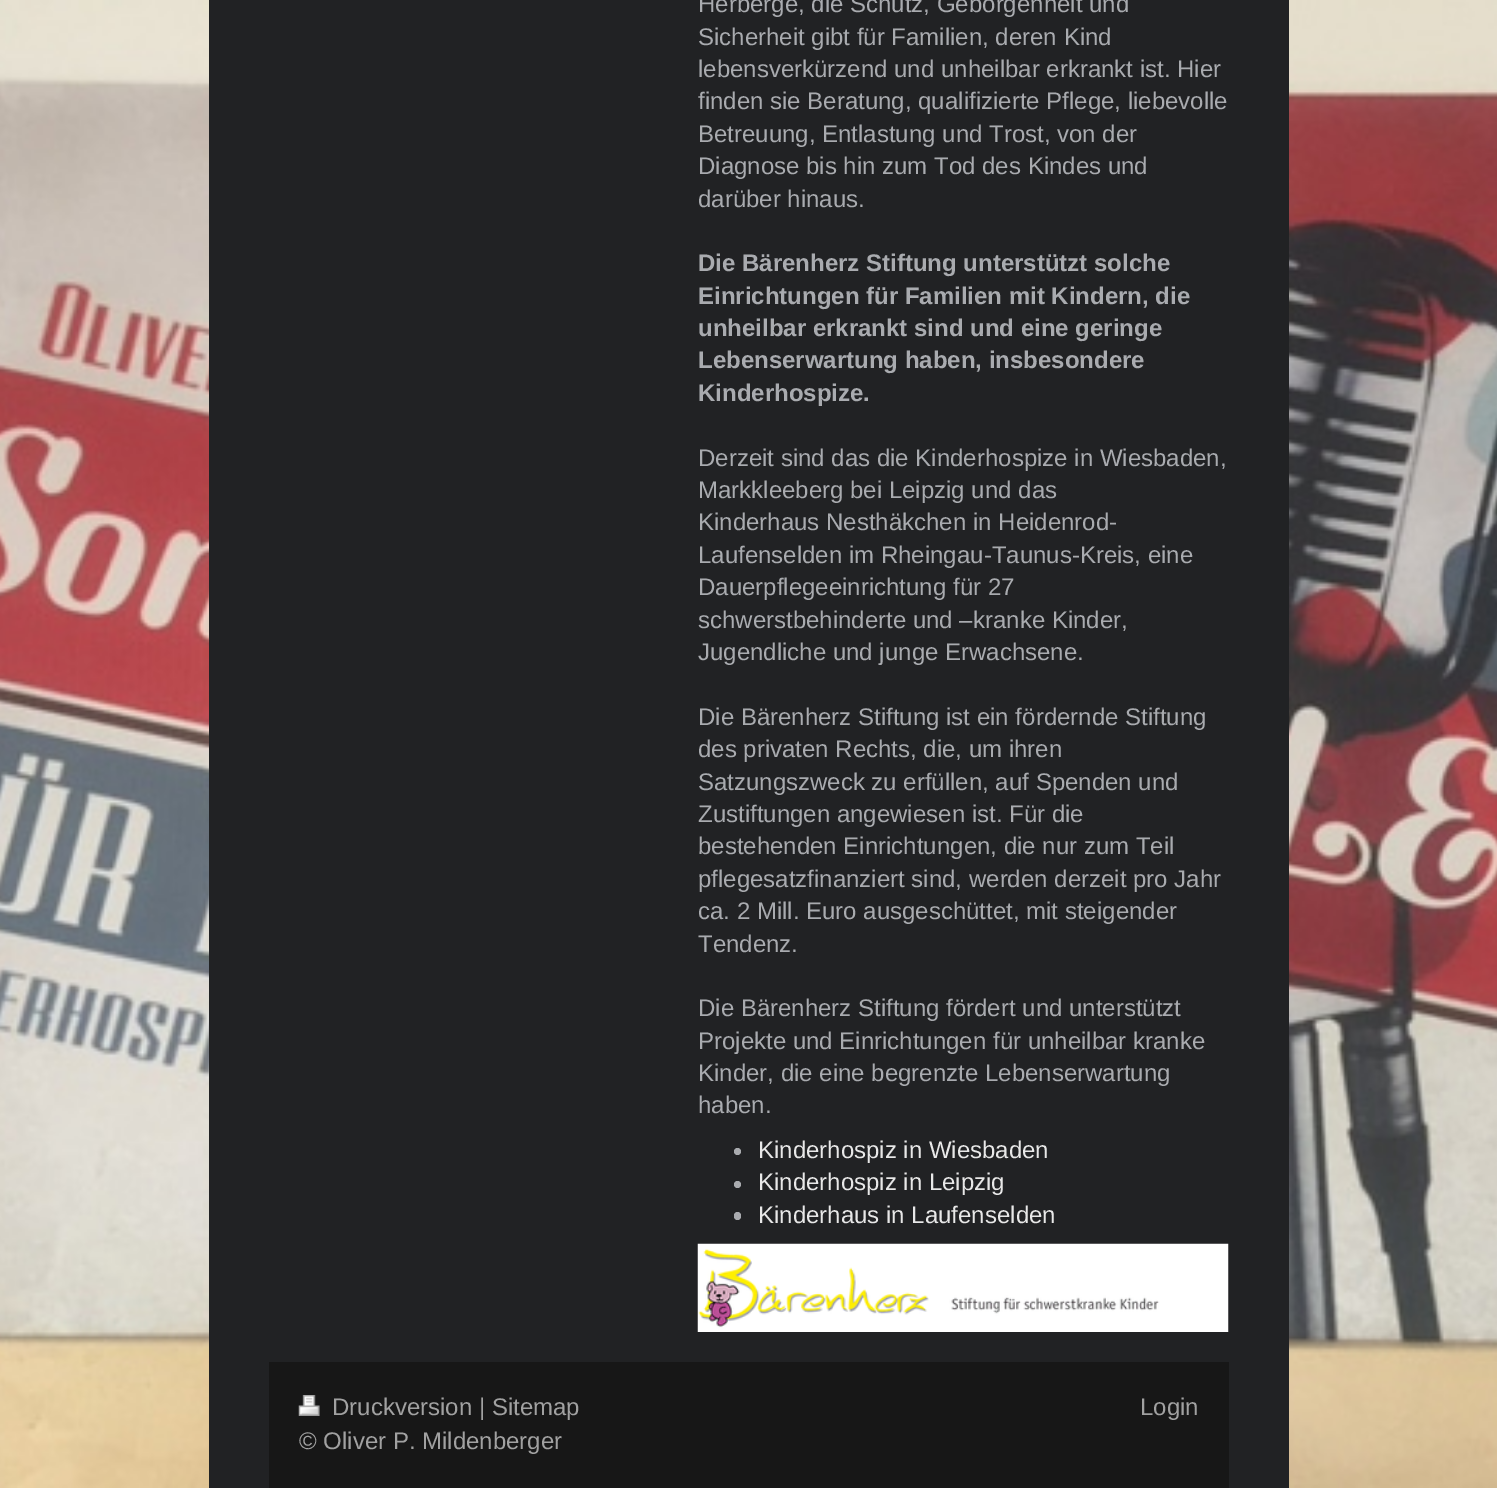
%!PS-Adobe-3.0
%%BoundingBox: 0 0 1497 1488
%%LanguageLevel: 3
%%Pages: 1
%%EndComments
%%BeginProlog
/setink { dup -16 bitshift 255 div exch dup -8 bitshift 255 and 255 div exch 255 and 255 div setrgbcolor } def
/usefont { [ exch dup neg 0 0 3 -1 roll 0 0 ] selectfont } def
/disc { newpath 0 360 arc closepath } def
/rrect { 5 dict begin { /r /h /w /y /x } { exch def } forall
  x r add y moveto x w add y 2 copy h add r arct x w add y h add x 1 index r arct
  x y h add x y r arct x y 2 copy exch w add exch r arct closepath end } def
/drawimage { 5 dict begin { /h /w /y /x /name } { exch def } forall
  gsave x y translate w h scale
  w h 8 [w 0 0 h 0 0] name (r) file false 3 colorimage grestore end } def
%%EndProlog
%%BeginSetup
<< /PageSize [1497 1488] >> setpagedevice
%%EndSetup
%%Page: 1 1
0 1488 translate 1 -1 scale
4 setmiterlimit
16#FFFFFF setink
0 0 1497 1488 rectfill
(img1.raw) 0 0 1497 1488 drawimage
16#212224 setink
209 0 1080 1488 rectfill
/LiberationSans-Regular 24 usefont
16#A9ABAF setink
[
    [(Herberge, die Schutz, Geborgenheit und) 698 12]
    [(Sicherheit gibt für Familien, deren Kind) 698 45]
    [(lebensverkürzend und unheilbar erkrankt ist. Hier) 698 77]
    [(finden sie Beratung, qualifizierte Pflege, liebevolle) 698 109]
    [(Betreuung, Entlastung und Trost, von der) 698 142]
    [(Diagnose bis hin zum Tod des Kindes und) 698 174]
    [(darüber hinaus.) 698 207]
] { aload pop moveto show } forall
/LiberationSans-Bold 24 usefont
[
    [(Die Bärenherz Stiftung unterstützt solche) 698 271]
    [(Einrichtungen für Familien mit Kindern, die) 698 304]
    [(unheilbar erkrankt sind und eine geringe) 698 336]
    [(Lebenserwartung haben, insbesondere) 698 368]
    [(Kinderhospize.) 698 401]
] { aload pop moveto show } forall
/LiberationSans-Regular 24 usefont
[
    [(Derzeit sind das die Kinderhospize in Wiesbaden,) 698 466]
    [(Markkleeberg bei Leipzig und das) 698 498]
    [(Kinderhaus Nesthäkchen in Heidenrod-) 698 530]
    [(Laufenselden im Rheingau-Taunus-Kreis, eine) 698 563]
    [(Dauerpflegeeinrichtung für 27) 698 595]
    [(schwerstbehinderte und –kranke Kinder,) 698 628]
    [(Jugendliche und junge Erwachsene.) 698 660]
    [(Die Bärenherz Stiftung ist ein fördernde Stiftung) 698 725]
    [(des privaten Rechts, die, um ihren) 698 757]
    [(Satzungszweck zu erfüllen, auf Spenden und) 698 790]
    [(Zustiftungen angewiesen ist. Für die) 698 822]
    [(bestehenden Einrichtungen, die nur zum Teil) 698 854]
    [(pflegesatzfinanziert sind, werden derzeit pro Jahr) 698 887]
    [(ca. 2 Mill. Euro ausgeschüttet, mit steigender) 698 919]
    [(Tendenz.) 698 952]
    [(Die Bärenherz Stiftung fördert und unterstützt) 698 1016]
    [(Projekte und Einrichtungen für unheilbar kranke) 698 1049]
    [(Kinder, die eine begrenzte Lebenserwartung) 698 1081]
    [(haben.) 698 1113]
] { aload pop moveto show } forall
737.5 1151.5 3.5 disc fill
16#E8E8E8 setink
758 1158 moveto (Kinderhospiz in Wiesbaden) show
16#A9ABAF setink
737.5 1184.5 3.5 disc fill
16#E8E8E8 setink
758 1190 moveto (Kinderhospiz in Leipzig) show
16#A9ABAF setink
734 1212 7 8 3.5 rrect fill
16#E8E8E8 setink
758 1223 moveto (Kinderhaus in Laufenselden) show
(img2.raw) 697 1243 532 89 drawimage
16#171717 setink
269 1362 960 126 rectfill
(img3.raw) 298 1395 22 21 drawimage
16#A1A1A1 setink
[
    [(Druckversion | Sitemap) 332 1415]
    [(© Oliver P. Mildenberger) 299 1449]
    [(Login) 1140 1415]
] { aload pop moveto show } forall
showpage
%%EOF
